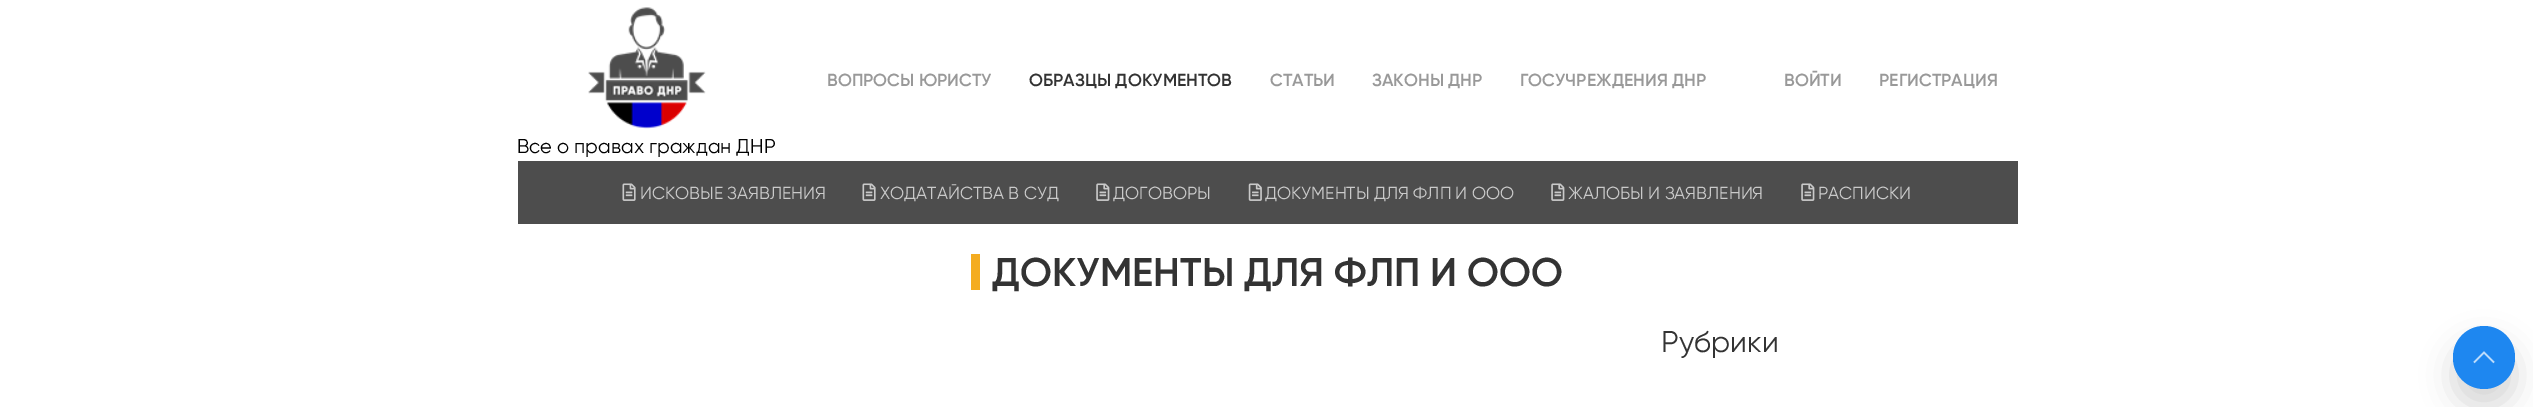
%!PS-Adobe-3.0
%%BoundingBox: 0 0 2533 407
%%LanguageLevel: 3
%%Pages: 1
%%EndComments
%%BeginProlog
/setink { dup -16 bitshift 255 div exch dup -8 bitshift 255 and 255 div exch 255 and 255 div setrgbcolor } def
/usefont { [ exch dup neg 0 0 3 -1 roll 0 0 ] selectfont } def
/setalpha { dup .setfillconstantalpha .setstrokeconstantalpha } def
/rrect { 5 dict begin { /r /h /w /y /x } { exch def } forall
  x r add y moveto x w add y 2 copy h add r arct x w add y h add x 1 index r arct
  x y h add x y r arct x y 2 copy exch w add exch r arct closepath end } def
/softshadow { 12 dict begin { /a /b /q /h /w /y /x } { exch def } forall gsave /was 0 def
  9 -2 -9 { dup b mul 4 div /e exch def 1 sub .425 mul 2.718 exch exp 1 add a .99 .min exch div /now exch def
    1 1 now sub 1 was sub div sub setalpha /was now def
    w h .min e 2 mul add 0 gt { x e sub y e sub w e 2 mul add h e 2 mul add
      q e add b .6 mul add w h .min 2 div e add .min 0 .max rrect fill } if } for grestore end } def
/drawimage { 5 dict begin { /h /w /y /x /name } { exch def } forall
  gsave x y translate w h scale
  w h 8 [w 0 0 h 0 0] name (r) file false 3 colorimage grestore end } def
%%EndProlog
%%BeginSetup
<< /PageSize [2533 407] /PageUsesTransparency true >> setpagedevice
%%EndSetup
%%Page: 1 1
0 .pushpdf14devicefilter
0 407 translate 1 -1 scale
4 setmiterlimit
16#FFFFFF setink
0 0 2533 407 rectfill
/Gilroy-SemiBold 17.5 usefont
16#999999 setink
827 86 moveto (ВОПРОСЫ ЮРИСТУ) show
16#333333 setink
1029 86 moveto (ОБРАЗЦЫ ДОКУМЕНТОВ) show
16#999999 setink
[
    [(СТАТЬИ) 1270 86]
    [(ЗАКОНЫ ДНР) 1372 86]
    [(ГОСУЧРЕЖДЕНИЯ ДНР) 1520 86]
    [(ВОЙТИ) 1784 86]
    [(РЕГИСТРАЦИЯ) 1879 86]
] { aload pop moveto show } forall
(img1.raw) 588 7 118 122 drawimage
/Gilroy-Regular 20 usefont
16#000000 setink
517 153 moveto (Все о правах граждан ДНР) show
16#4D4D4D setink
518 161 1500 63 rectfill
(img2.raw) 622 183 14 18 drawimage
/Gilroy-Regular 17.5 usefont
16#CACACA setink
640 199 moveto (ИСКОВЫЕ ЗАЯВЛЕНИЯ) show
(img2.raw) 862 183 14 18 drawimage
880 199 moveto (ХОДАТАЙСТВА В СУД) show
(img3.raw) 1096 183 14 18 drawimage
1113 199 moveto (ДОГОВОРЫ) show
(img4.raw) 1248 183 14 18 drawimage
1265 199 moveto (ДОКУМЕНТЫ ДЛЯ ФЛП И ООО) show
(img3.raw) 1551 183 14 18 drawimage
1568 199 moveto (ЖАЛОБЫ И ЗАЯВЛЕНИЯ) show
(img3.raw) 1801 183 14 18 drawimage
1818 199 moveto (РАСПИСКИ) show
16#F4AC20 setink
971 254 9 36 rectfill
/Gilroy-SemiBold 40 usefont
16#333333 setink
992 286 moveto (ДОКУМЕНТЫ ДЛЯ ФЛП И ООО) show
/Gilroy-Regular 30 usefont
1661 352 moveto (Рубрики) show
16#000000 setink
2453 344 62 62 31 15.5 0.16 softshadow
16#1E87F0 setink
2453 326 62 63 31 rrect fill
16#BCDBFB setink
1.5 setlinewidth
2474 362.5 moveto 2484 352.5 lineto 2494 362.5 lineto stroke
.poppdf14devicefilter showpage
%%EOF
